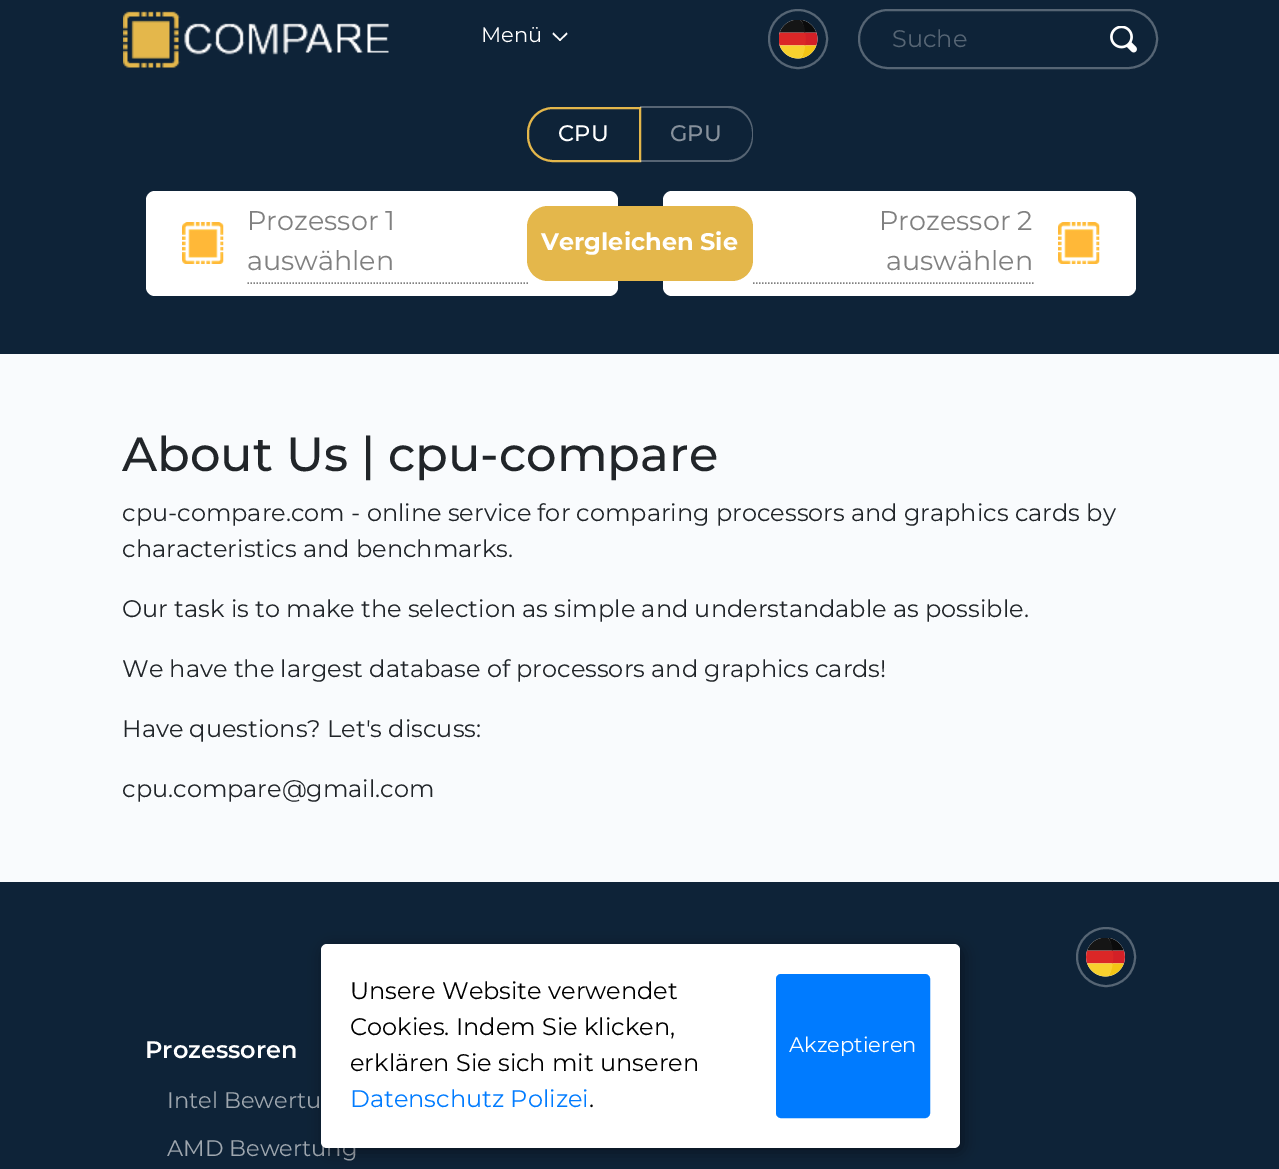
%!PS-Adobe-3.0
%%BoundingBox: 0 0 1279 1169
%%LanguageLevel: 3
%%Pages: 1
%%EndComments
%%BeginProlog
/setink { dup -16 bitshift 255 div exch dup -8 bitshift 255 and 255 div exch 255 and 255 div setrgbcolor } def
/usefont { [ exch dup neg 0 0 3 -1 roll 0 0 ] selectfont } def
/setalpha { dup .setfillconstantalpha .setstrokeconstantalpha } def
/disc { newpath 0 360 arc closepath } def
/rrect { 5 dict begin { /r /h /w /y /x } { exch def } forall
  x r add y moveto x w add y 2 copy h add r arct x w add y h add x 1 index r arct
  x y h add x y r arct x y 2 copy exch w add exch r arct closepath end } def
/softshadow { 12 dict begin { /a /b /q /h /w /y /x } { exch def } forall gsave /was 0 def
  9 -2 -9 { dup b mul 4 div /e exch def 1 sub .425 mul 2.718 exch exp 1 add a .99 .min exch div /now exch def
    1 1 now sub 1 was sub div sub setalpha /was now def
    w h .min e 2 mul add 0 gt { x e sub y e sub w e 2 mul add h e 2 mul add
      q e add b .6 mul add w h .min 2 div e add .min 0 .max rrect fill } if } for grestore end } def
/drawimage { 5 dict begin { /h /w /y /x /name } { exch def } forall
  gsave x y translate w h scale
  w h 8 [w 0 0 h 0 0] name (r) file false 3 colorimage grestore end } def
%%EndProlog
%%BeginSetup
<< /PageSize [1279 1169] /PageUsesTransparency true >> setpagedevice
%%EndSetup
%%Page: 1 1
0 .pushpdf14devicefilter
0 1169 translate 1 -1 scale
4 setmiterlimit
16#F9FBFD setink
0 0 1279 1169 rectfill
16#0E2338 setink
0 0 1279 354 rectfill
(img1.raw) 123 11 266 57 drawimage
/Montserrat-Regular 21 usefont
16#FFFFFF setink
481 42 moveto (Menü) show
566.5 32.5 moveto 567.5 34 lineto 560 41 lineto 559 40 lineto closepath fill
553.5 32.5 moveto 561 40 lineto 560 41 lineto 552.5 34 lineto closepath fill
16#566574 setink
2 setlinewidth
798 39 29 disc stroke
(img2.raw) 779 20 39 39 drawimage
859 10 298 58 29 rrect stroke
/Montserrat-Regular 24 usefont
892 47 moveto (Suche) show
(img3.raw) 1110 26 27 27 drawimage
16#E4B74B setink
553 108 moveto 640 108 lineto 640 161 lineto 553 161 lineto 539 161 528 150 528 136 curveto 528 133 lineto 528 119 539 108 553 108 curveto closepath stroke
/Montserrat-Medium 22.5 usefont
16#FFFFFF setink
558 141 moveto (CPU) show
0.3 setalpha
640 106 moveto 728 106 lineto 742 106 753 118 753 132 curveto 753 136 lineto 753 151 742 162 728 162 curveto 640 162 lineto closepath 640 108 moveto 728 108 lineto 741 108 752 119 752 132 curveto 752 136 lineto 752 150 741 160 728 160 curveto 640 160 lineto closepath eofill
1 setalpha
16#87919C setink
670 141 moveto (GPU) show
16#FFFFFF setink
146 191 472 105 9 rrect fill
(img4.raw) 182 222 42 42 drawimage
16#808080 setink
1.5 setlinewidth
[1.5 1.5] 0 setdash
247.5 283 moveto 528 283 lineto stroke
/Montserrat-Regular 27 usefont
247 230 moveto (Prozessor 1) show
247 270 moveto (auswählen) show
16#FFFFFF setink
663 191 473 105 9 rrect fill
16#808080 setink
753 283 moveto 1033.5 283 lineto stroke
879 230 moveto (Prozessor 2) show
886 270 moveto (auswählen) show
(img5.raw) 1058 222 42 42 drawimage
16#E4B74B setink
527 206 226 75 21 rrect fill
/Montserrat-Bold 24 usefont
16#FFFFFF setink
541 250 moveto (Vergleichen Sie) show
/Montserrat-Medium 48 usefont
16#212529 setink
122 471 moveto (About Us | cpu-compare) show
/Montserrat-Regular 24 usefont
[
    [(cpu-compare.com - online service for comparing processors and graphics cards by) 122 521]
    [(characteristics and benchmarks.) 122 557]
    [(Our task is to make the selection as simple and understandable as possible.) 122 617]
    [(We have the largest database of processors and graphics cards!) 122 677]
    [(Have questions? Let's discuss:) 122 737]
    [(cpu.compare@gmail.com) 122 797]
] { aload pop moveto show } forall
16#0E2338 setink
0 882 1279 287 rectfill
16#566574 setink
2 setlinewidth
[] 0 setdash
1106 957 29 disc stroke
(img6.raw) 1086 938 39 39 drawimage
/Montserrat-SemiBold 24 usefont
16#FFFFFF setink
145 1058 moveto (Prozessoren) show
/Montserrat-Regular 22.5 usefont
16#9FA7AF setink
167 1108 moveto (Intel Bewertu) show
167 1156 moveto (AMD Bewertung) show
16#000000 setink
324 948 639 204 6 7.5 0.4 softshadow
16#FFFFFF setink
321 944 639 204 6 rrect fill
/Montserrat-Regular 24 usefont
16#000000 setink
[
    [(Unsere Website verwendet) 350 999]
    [(Cookies. Indem Sie klicken,) 350 1035]
    [(erklären Sie sich mit unseren) 350 1071]
] { aload pop moveto show } forall
16#007BFF setink
350 1107 moveto (Datenschutz Polizei) show
16#000000 setink
589 1107 moveto (.) show
16#007BFF setink
777 975 152 142 4 rrect gsave fill grestore
stroke
/Montserrat-Regular 21 usefont
16#FFFFFF setink
789 1052 moveto (Akzeptieren) show
.poppdf14devicefilter showpage
%%EOF
